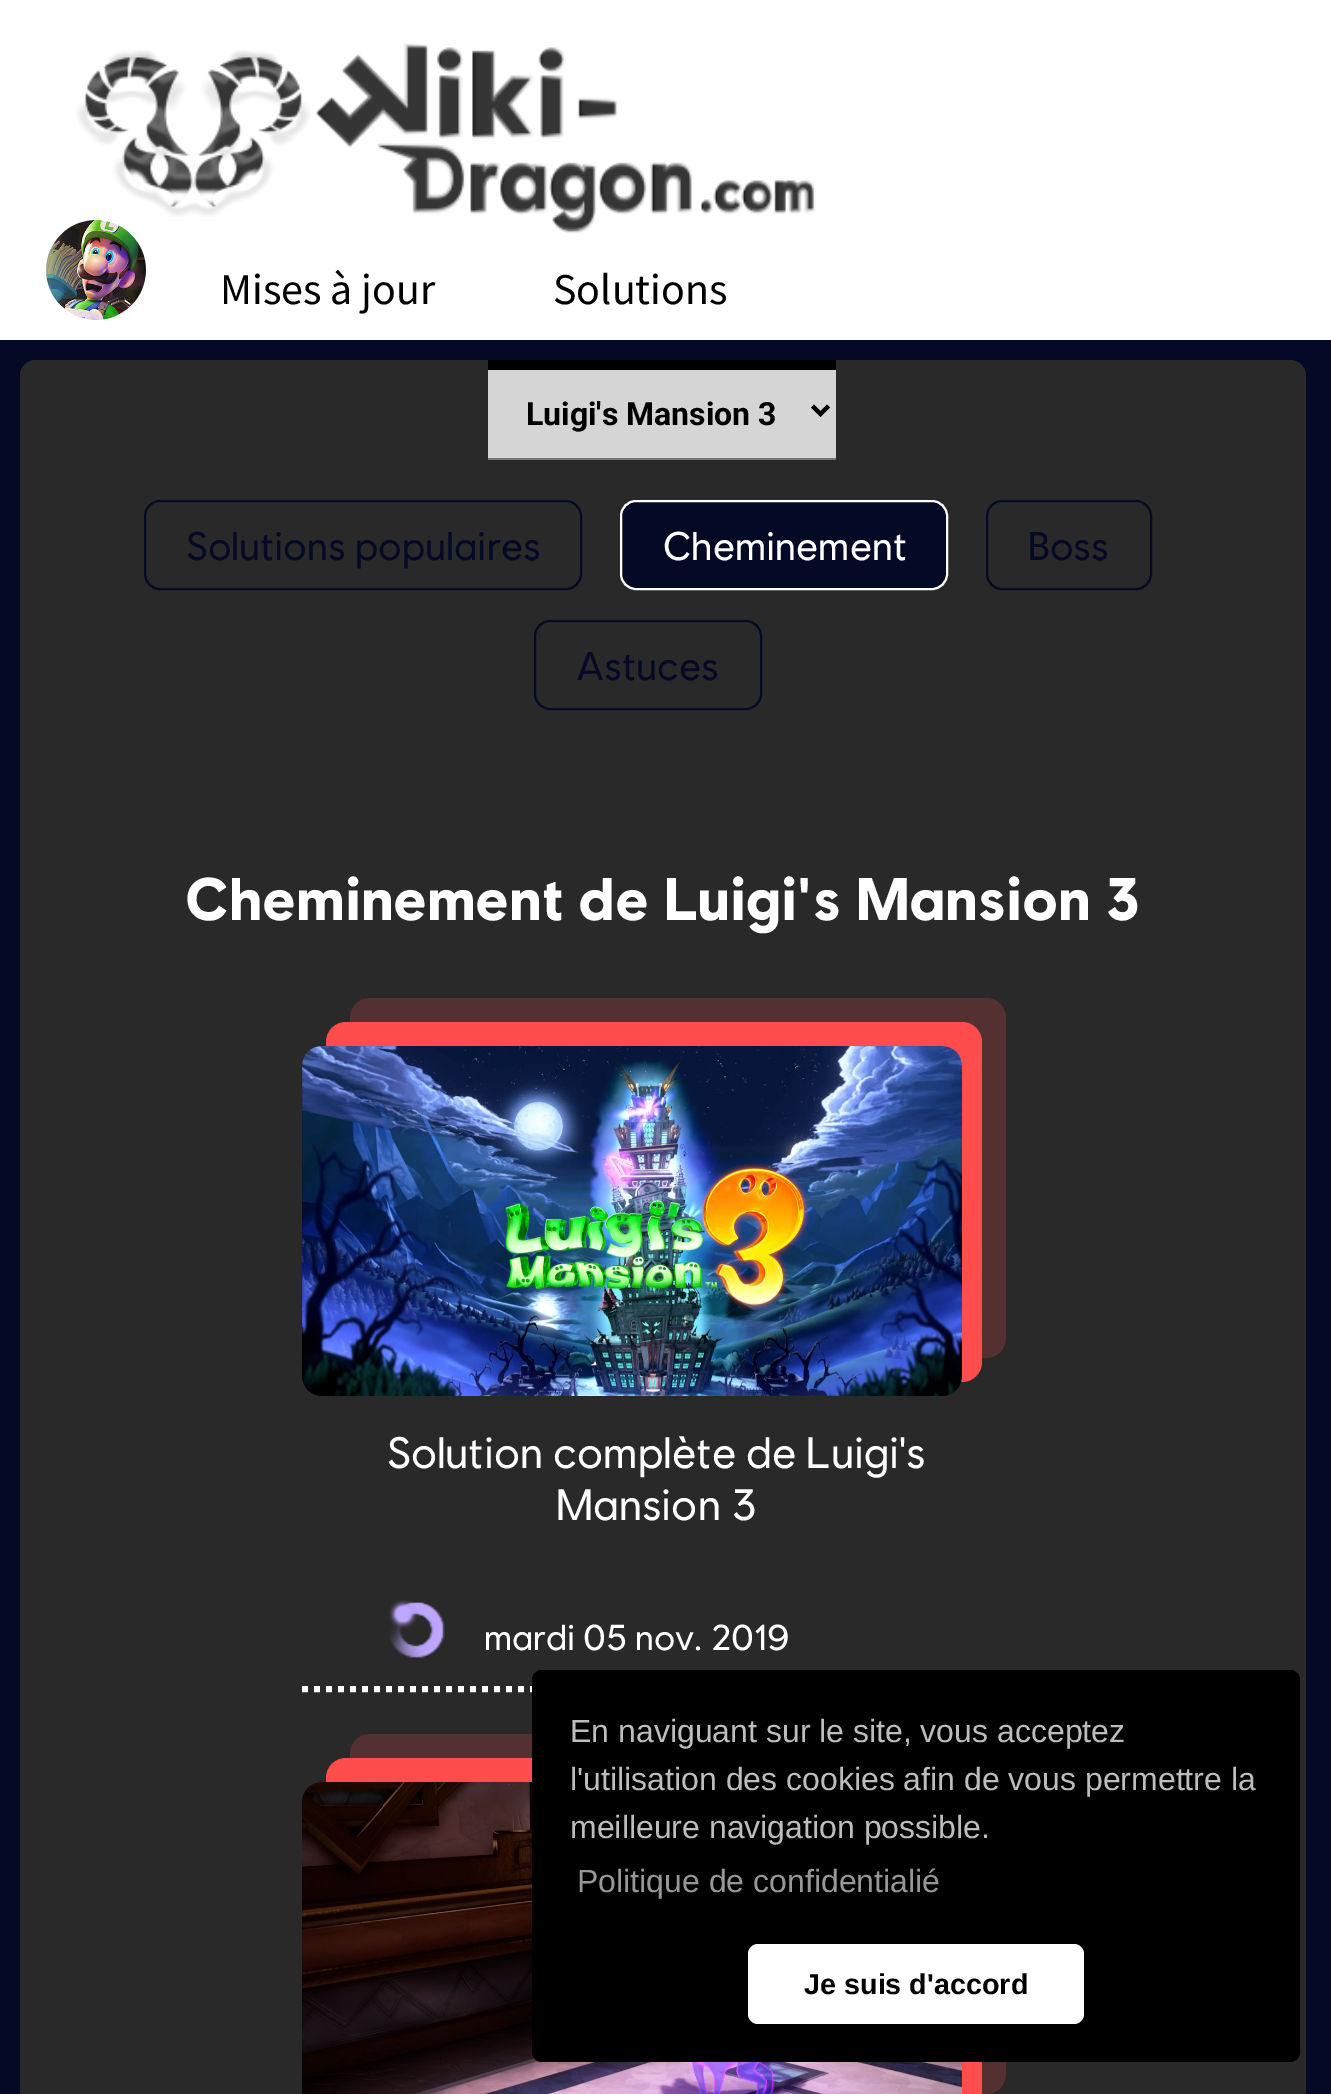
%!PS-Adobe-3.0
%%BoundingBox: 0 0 1331 2094
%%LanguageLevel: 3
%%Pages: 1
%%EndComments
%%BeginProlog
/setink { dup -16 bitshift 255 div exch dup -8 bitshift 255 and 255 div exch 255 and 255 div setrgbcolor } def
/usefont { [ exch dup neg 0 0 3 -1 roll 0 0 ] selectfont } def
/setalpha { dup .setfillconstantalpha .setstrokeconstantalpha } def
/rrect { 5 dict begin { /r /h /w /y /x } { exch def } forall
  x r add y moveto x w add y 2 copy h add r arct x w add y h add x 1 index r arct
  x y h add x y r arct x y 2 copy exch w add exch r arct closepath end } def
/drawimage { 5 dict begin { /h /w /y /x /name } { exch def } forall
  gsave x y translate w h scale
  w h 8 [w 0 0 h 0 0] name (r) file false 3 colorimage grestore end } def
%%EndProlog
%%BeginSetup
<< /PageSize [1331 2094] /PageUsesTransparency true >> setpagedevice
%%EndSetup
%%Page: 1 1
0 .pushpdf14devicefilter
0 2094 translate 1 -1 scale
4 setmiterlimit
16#040925 setink
0 0 1331 2094 rectfill
16#FFFFFF setink
0 0 1331 340 rectfill
(img1.raw) 76 50 235 167 drawimage
(img2.raw) 316 43 500 191 drawimage
(img3.raw) 46 220 100 100 drawimage
/SourceSansPro-Regular 44 usefont
16#000000 setink
220 304 moveto (Mises à jour) show
553 304 moveto (Solutions) show
16#292929 setink
20 360 1286 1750 16 rrect fill
[
    [488 370 348 88 16#D5D5D5]
    [488 360 348 10 16#000000]
    [488 458 348 2 16#767676]
] { aload pop setink rectfill } forall
16#000000 setink
4 setlinewidth
812.5 406 moveto 820.5 414 lineto 828.5 406 lineto stroke
/Roboto-Bold 32 usefont
526 425 moveto (Luigi's Mansion 3) show
16#040925 setink
2 setlinewidth
145 501 436 88 15 rrect stroke
/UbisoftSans-Regular 40 usefont
186 560 moveto (Solutions populaires) show
621 501 326 88 15 rrect gsave fill grestore
16#FFFFFF setink
stroke
663 560 moveto (Cheminement) show
16#040925 setink
987 501 164 88 15 rrect stroke
1028 560 moveto (Boss) show
535 621 226 88 15 rrect stroke
576 680 moveto (Astuces) show
/UbisoftSans-Bold 60 usefont
16#FFFFFF setink
185 920 moveto (Cheminement de Luigi's Mansion 3) show
6 setlinewidth
[6 6] 0 setdash
302 1689 moveto 962 1689 lineto stroke
16#FF4D4D setink
326 1022 656 360 20 rrect fill
0.2 setalpha
350 998 656 360 20 rrect fill
1 setalpha
(img4.raw) 302 1046 660 350 drawimage
/UbisoftSans-Regular 44 usefont
16#FFFFFF setink
387 1468 moveto (Solution complète de Luigi's) show
556 1520 moveto (Mansion 3) show
(img5.raw) 389 1600 56 58 drawimage
/UbisoftSans-Regular 36 usefont
484 1650 moveto (mardi 05 nov. 2019) show
16#FF4D4D setink
326 1758 656 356 20 rrect fill
0.2 setalpha
350 1734 656 360 20 rrect fill
1 setalpha
(img6.raw) 302 1782 660 312 drawimage
16#000000 setink
532 1670 768 392 10 rrect fill
/LiberationSans-Regular 32 usefont
16#BDBDBD setink
[
    [(En naviguant sur le site, vous acceptez) 570 1742]
    [(l'utilisation des cookies afin de vous permettre la) 570 1790]
    [(meilleure navigation possible.) 570 1838]
] { aload pop moveto show } forall
16#979797 setink
577 1892 moveto (Politique de confidentialié) show
16#FFFFFF setink
748 1944 336 80 10 rrect fill
/LiberationSans-Bold 28.75 usefont
16#000000 setink
804 1994 moveto (Je suis d'accord) show
.poppdf14devicefilter showpage
%%EOF
